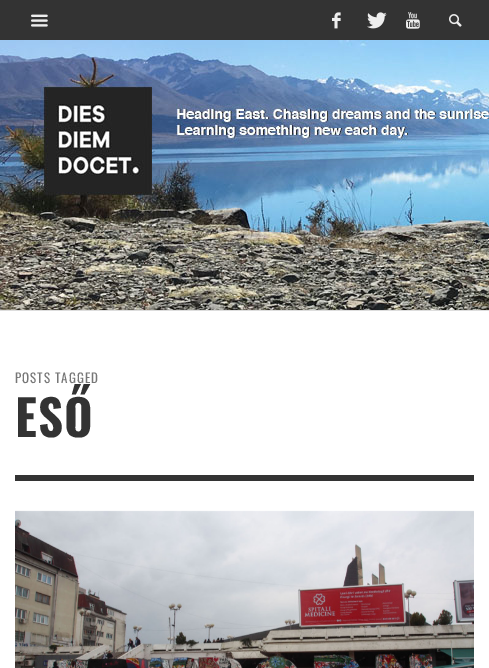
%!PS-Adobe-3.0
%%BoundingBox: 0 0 489 668
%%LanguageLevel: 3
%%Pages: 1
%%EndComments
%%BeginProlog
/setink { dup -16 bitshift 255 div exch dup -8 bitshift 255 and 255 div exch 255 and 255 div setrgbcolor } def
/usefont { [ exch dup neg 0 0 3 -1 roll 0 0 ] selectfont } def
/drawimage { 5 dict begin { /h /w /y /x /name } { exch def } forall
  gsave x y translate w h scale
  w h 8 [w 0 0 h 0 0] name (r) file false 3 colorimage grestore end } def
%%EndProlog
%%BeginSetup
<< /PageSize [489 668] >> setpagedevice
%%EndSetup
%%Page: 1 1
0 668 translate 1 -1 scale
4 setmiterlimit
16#FFFFFF setink
0 0 489 668 rectfill
16#333333 setink
0 0 489 40 rectfill
(img1.raw) 31 14 17 13 drawimage
(img2.raw) 332 12 9 17 drawimage
(img3.raw) 367 12 20 17 drawimage
(img4.raw) 406 12 14 17 drawimage
(img5.raw) 449 14 13 13 drawimage
16#DDDDDD setink
0 310 489 1 rectfill
(img6.raw) 0 40 489 270 drawimage
/Oswald-Regular 13 usefont
16#777777 setink
15 383 moveto 1 0 (POSTS TAGGED) ashow
/Oswald-Bold 49 usefont
16#333333 setink
15 437 moveto 1 0 (ESŐ) ashow
15 475 459 6 rectfill
(img7.raw) 15 510 459 158 drawimage
showpage
%%EOF
